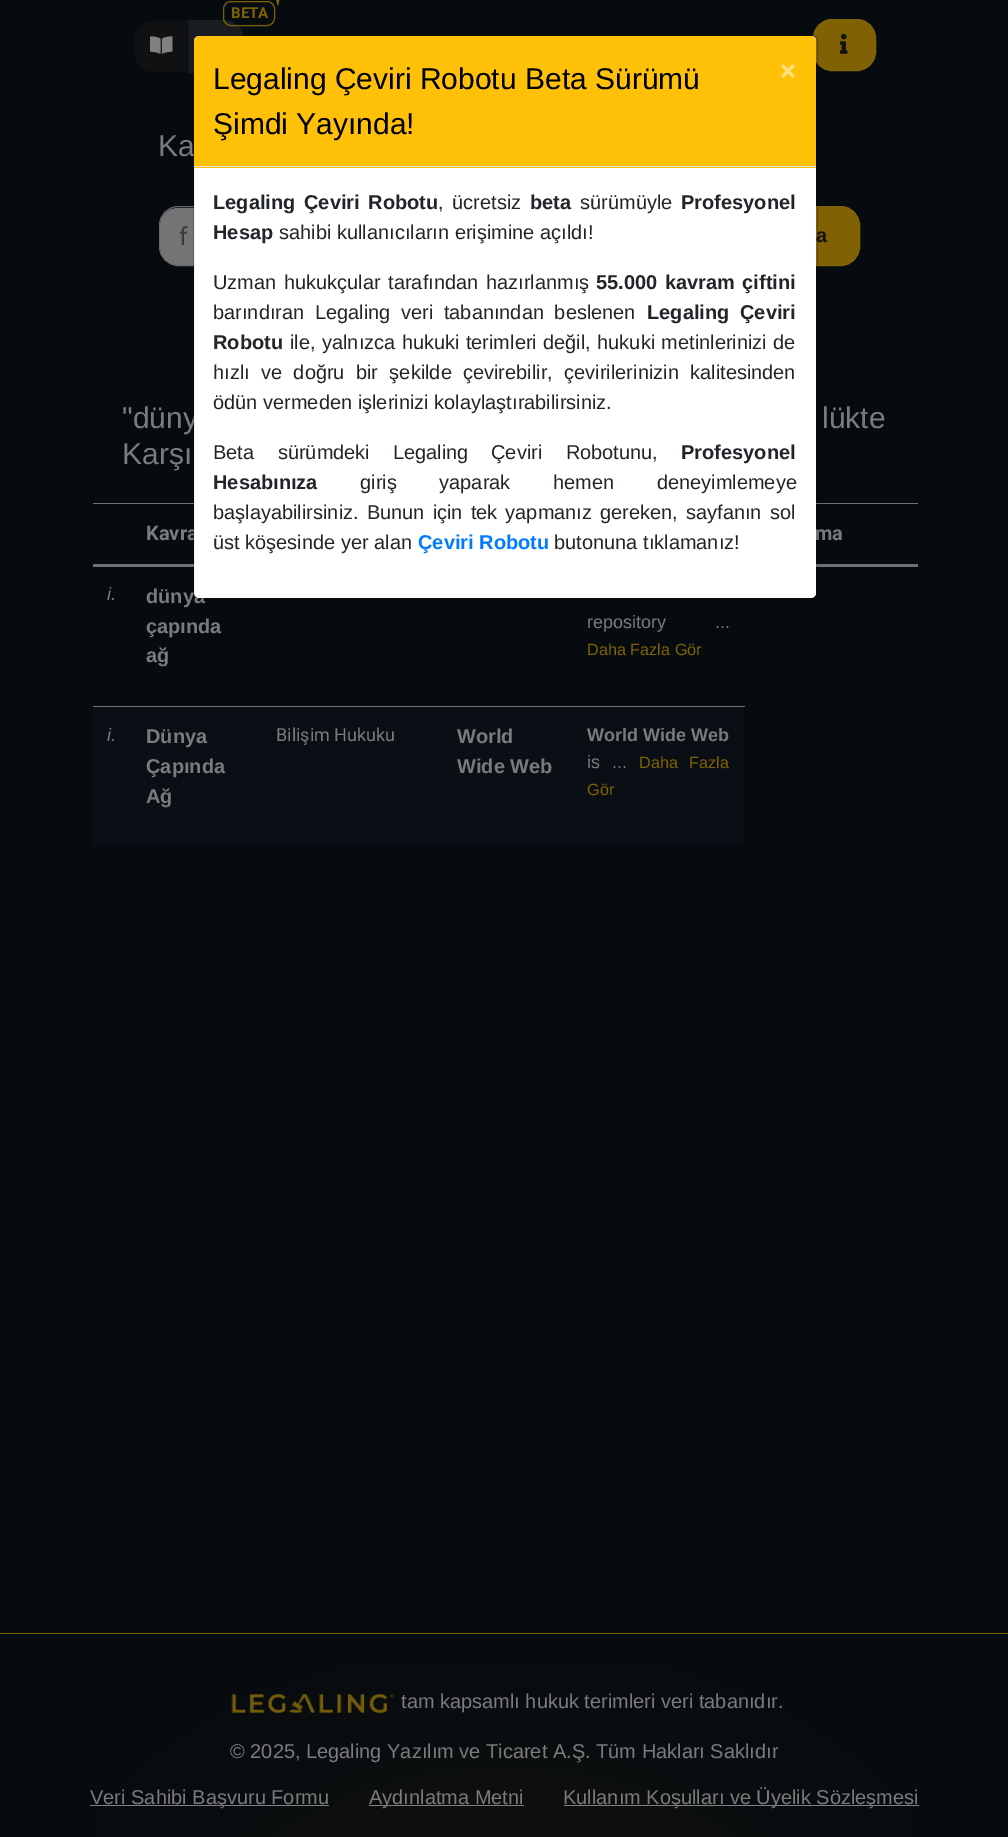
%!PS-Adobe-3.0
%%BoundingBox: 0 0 1008 1837
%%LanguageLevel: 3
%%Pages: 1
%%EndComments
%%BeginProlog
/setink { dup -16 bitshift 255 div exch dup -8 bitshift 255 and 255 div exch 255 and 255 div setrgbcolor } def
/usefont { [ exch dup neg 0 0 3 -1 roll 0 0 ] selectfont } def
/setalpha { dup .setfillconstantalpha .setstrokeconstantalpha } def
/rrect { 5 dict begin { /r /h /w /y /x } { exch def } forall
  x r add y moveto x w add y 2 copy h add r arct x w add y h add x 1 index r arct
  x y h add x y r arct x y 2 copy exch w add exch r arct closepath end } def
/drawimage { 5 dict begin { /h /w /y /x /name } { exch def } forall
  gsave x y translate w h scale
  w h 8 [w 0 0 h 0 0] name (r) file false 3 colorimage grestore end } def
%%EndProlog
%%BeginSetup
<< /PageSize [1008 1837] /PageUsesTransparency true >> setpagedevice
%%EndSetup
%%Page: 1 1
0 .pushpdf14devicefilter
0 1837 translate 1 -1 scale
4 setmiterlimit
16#060B0F setink
0 0 1008 1837 rectfill
16#1A1D20 setink
186.5 20.5 moveto 225 20.5 lineto 235 20.5 243.5 29 243.5 39 curveto 243.5 54 lineto 243.5 64 235 72.5 225 72.5 curveto 186.5 72.5 lineto closepath gsave fill grestore
stroke
16#806104 setink
223.5 1.5 51 24 7.5 rrect stroke
(img1.raw) 276 0 4 6 drawimage
/Roboto-Bold 15 usefont
231 18 moveto (BETA) show
16#0F1112 setink
153 20.5 moveto 187.5 20.5 lineto 187.5 72.5 lineto 153 72.5 lineto 143 72.5 134.5 64 134.5 54 curveto 134.5 39 lineto 134.5 29 143 20.5 153 20.5 curveto closepath gsave fill grestore
16#0C0D0F setink
stroke
(img2.raw) 150 36 23 18 drawimage
16#806104 setink
813.5 19.5 62 51 18.5 rrect gsave fill grestore
stroke
(img3.raw) 840 33 8 21 drawimage
/LiberationSans-Regular 30 usefont
16#7B7B7C setink
158 156 moveto (Ka) show
16#747474 setink
178 208 moveto 619 208 lineto 619 265 lineto 178 265 lineto 168 265 160 257 160 247 curveto 160 226 lineto 160 216 168 208 178 208 curveto closepath fill
16#676A6D setink
178 206.5 moveto 619.5 206.5 lineto 619.5 265.5 lineto 178 265.5 lineto 168 265.5 159.5 257 159.5 247 curveto 159.5 225 lineto 159.5 215 168 206.5 178 206.5 curveto closepath stroke
/Roboto-Regular 25 usefont
16#363B3F setink
179 245 moveto (f) show
16#806104 setink
735.5 206.5 moveto 841 206.5 lineto 851 206.5 859.5 215 859.5 225 curveto 859.5 247 lineto 859.5 257 851 265.5 841 265.5 curveto 735.5 265.5 lineto closepath gsave fill grestore
stroke
/LiberationSans-Bold 20 usefont
16#161616 setink
816 242 moveto (a) show
/LiberationSans-Regular 30 usefont
16#7B7B7C setink
[
    [("düny) 122 428]
    [(lükte) 822 428]
    [(Karşı) 122 464]
] { aload pop moveto show } forall
16#6F7173 setink
93 503 101 1 rectfill
93 564 101 3 rectfill
/Roboto-Bold 20 usefont
16#7B7B7C setink
146 540 moveto (Kavra) show
16#6F7173 setink
816 503 102 1 rectfill
816 564 102 3 rectfill
16#7B7B7C setink
815 540 moveto (ma) show
/LiberationSans-Italic 18 usefont
107 600 moveto (i.) show
/LiberationSans-Bold 20 usefont
[
    [(dünya) 146 603]
    [(çapında) 146 633]
    [(ağ) 146 662]
] { aload pop moveto show } forall
/LiberationSans-Regular 18 usefont
587 628 moveto 44 0 32 (repository ...) widthshow
/LiberationSans-Regular 16.25 usefont
16#806104 setink
587 655 moveto (Daha Fazla Gör) show
16#090F15 setink
93 707 651 139 rectfill
/LiberationSans-Italic 18 usefont
16#7B7B7C setink
107 741 moveto (i.) show
/LiberationSans-Bold 20 usefont
[
    [(Dünya) 146 743]
    [(Çapında) 146 773]
    [(Ağ) 146 803]
] { aload pop moveto show } forall
/Roboto-Regular 18 usefont
276 741 moveto (Bilişim Hukuku) show
/LiberationSans-Bold 20 usefont
457 743 moveto (World) show
457 773 moveto (Wide Web) show
16#6F7173 setink
93 706 652 1 rectfill
/LiberationSans-Bold 18 usefont
16#7B7B7C setink
587 741 moveto (World Wide Web) show
/LiberationSans-Regular 18 usefont
587 768 moveto 7 0 32 (is ...) widthshow
/LiberationSans-Regular 16.25 usefont
16#806104 setink
639 768 moveto 7 0 32 (Daha Fazla) widthshow
587 795 moveto (Gör) show
16#FFFFFF setink
194 36 622 562 5 rrect fill
0.2 setalpha
16#000000 setink
193.5 35.5 624 563 5.5 rrect stroke
1 setalpha
16#FFC107 setink
200 36 moveto 810 36 lineto 813.5 36 816 38.5 816 42 curveto 816 168 lineto 194 168 lineto 194 42 lineto 194 38.5 196.5 36 200 36 curveto closepath fill
16#DEE2E6 setink
194 166 622 1 rectfill
/LiberationSans-Regular 30 usefont
16#000000 setink
213 89 moveto (Legaling Çeviri Robotu Beta Sürümü) show
213 134 moveto (Şimdi Yayında!) show
/Roboto-Bold 30 usefont
16#FFE083 setink
780 81 moveto (×) show
/LiberationSans-Bold 20 usefont
16#212529 setink
213 209 moveto (Legaling) show
304 209 moveto 3 0 32 (Çeviri Robotu) widthshow
/LiberationSans-Regular 20 usefont
438 209 moveto 3 0 32 (, ücretsiz) widthshow
/LiberationSans-Bold 20 usefont
530 209 moveto (beta) show
/LiberationSans-Regular 20 usefont
580 209 moveto (sürümüyle) show
/LiberationSans-Bold 20 usefont
681 209 moveto (Profesyonel) show
213 239 moveto (Hesap) show
/LiberationSans-Regular 20 usefont
279 239 moveto (sahibi kullanıcıların erişimine açıldı!) show
213 289 moveto 2 0 32 (Uzman hukukçular tarafından hazırlanmış) widthshow
/LiberationSans-Bold 20 usefont
596 289 moveto 2 0 32 (55.000 kavram çiftini) widthshow
/LiberationSans-Regular 20 usefont
213 319 moveto (barındıran) show
315 319 moveto (Legaling) show
401 319 moveto 5 0 32 (veri tabanından beslenen) widthshow
/LiberationSans-Bold 20 usefont
[
    [(Legaling) 647 319]
    [(Çeviri) 740 319]
    [(Robotu) 213 349]
] { aload pop moveto show } forall
/LiberationSans-Regular 20 usefont
290 349 moveto 0.75 0 32 (ile, yalnızca hukuki terimleri değil, hukuki metinlerinizi de) widthshow
213 379 moveto 5.75 0 32 (hızlı ve doğru bir şekilde çevirebilir, çevirilerinizin kalitesinden) widthshow
213 409 moveto (ödün vermeden işlerinizi kolaylaştırabilirsiniz.) show
213 459 moveto 18 0 32 (Beta sürümdeki) widthshow
393 459 moveto (Legaling) show
491 459 moveto 18 0 32 (Çeviri Robotunu,) widthshow
/LiberationSans-Bold 20 usefont
681 459 moveto (Profesyonel) show
213 489 moveto (Hesabınıza) show
/LiberationSans-Regular 20 usefont
360 489 moveto 37 0 32 (giriş yaparak hemen deneyimlemeye) widthshow
213 519 moveto 2.5 0 32 (başlayabilirsiniz. Bunun için tek yapmanız gereken, sayfanın sol) widthshow
213 549 moveto (üst köşesinde yer alan) show
/LiberationSans-Bold 20 usefont
16#007BFF setink
418 549 moveto (Çeviri Robotu) show
/LiberationSans-Regular 20 usefont
16#212529 setink
554 549 moveto (butonuna tıklamanız!) show
16#806104 setink
0 1633 1008 1 rectfill
gsave 96 1659 moveto 912 1659 lineto 912 1837 lineto 96 1837 lineto closepath clip newpath 504 2015 translate 713 539 scale
<< /ShadingType 3 /ColorSpace /DeviceRGB /Coords [0 0 0 0 0 1] /Extend [true true] /Function << /FunctionType 3 /Domain [0 1] /Functions [<< /FunctionType 2 /Domain [0 1] /C0 [0.059 0.063 0.059] /C1 [0.059 0.063 0.059] /N 1 >> << /FunctionType 2 /Domain [0 1] /C0 [0.059 0.063 0.059] /C1 [0.024 0.043 0.059] /N 1 >> << /FunctionType 2 /Domain [0 1] /C0 [0.024 0.043 0.059] /C1 [0.024 0.043 0.059] /N 1 >>] /Bounds [0.3 0.8] /Encode [0 1 0 1 0 1] >> >> shfill grestore
(img4.raw) 231 1694 164 19 drawimage
16#7B7B7C setink
401 1708 moveto (tam kapsamlı hukuk terimleri veri tabanıdır.) show
230 1758 moveto (© 2025, Legaling Yazılım ve Ticaret A.Ş. Tüm Hakları Saklıdır) show
16#808080 setink
90 1805 239 1 rectfill
16#7B7B7C setink
90 1804 moveto (Veri Sahibi Başvuru Formu) show
16#808080 setink
369 1805 155 1 rectfill
16#7B7B7C setink
369 1804 moveto (Aydınlatma Metni) show
16#808080 setink
564 1805 355 1 rectfill
16#7B7B7C setink
563 1804 moveto (Kullanım Koşulları ve Üyelik Sözleşmesi) show
.poppdf14devicefilter showpage
%%EOF
